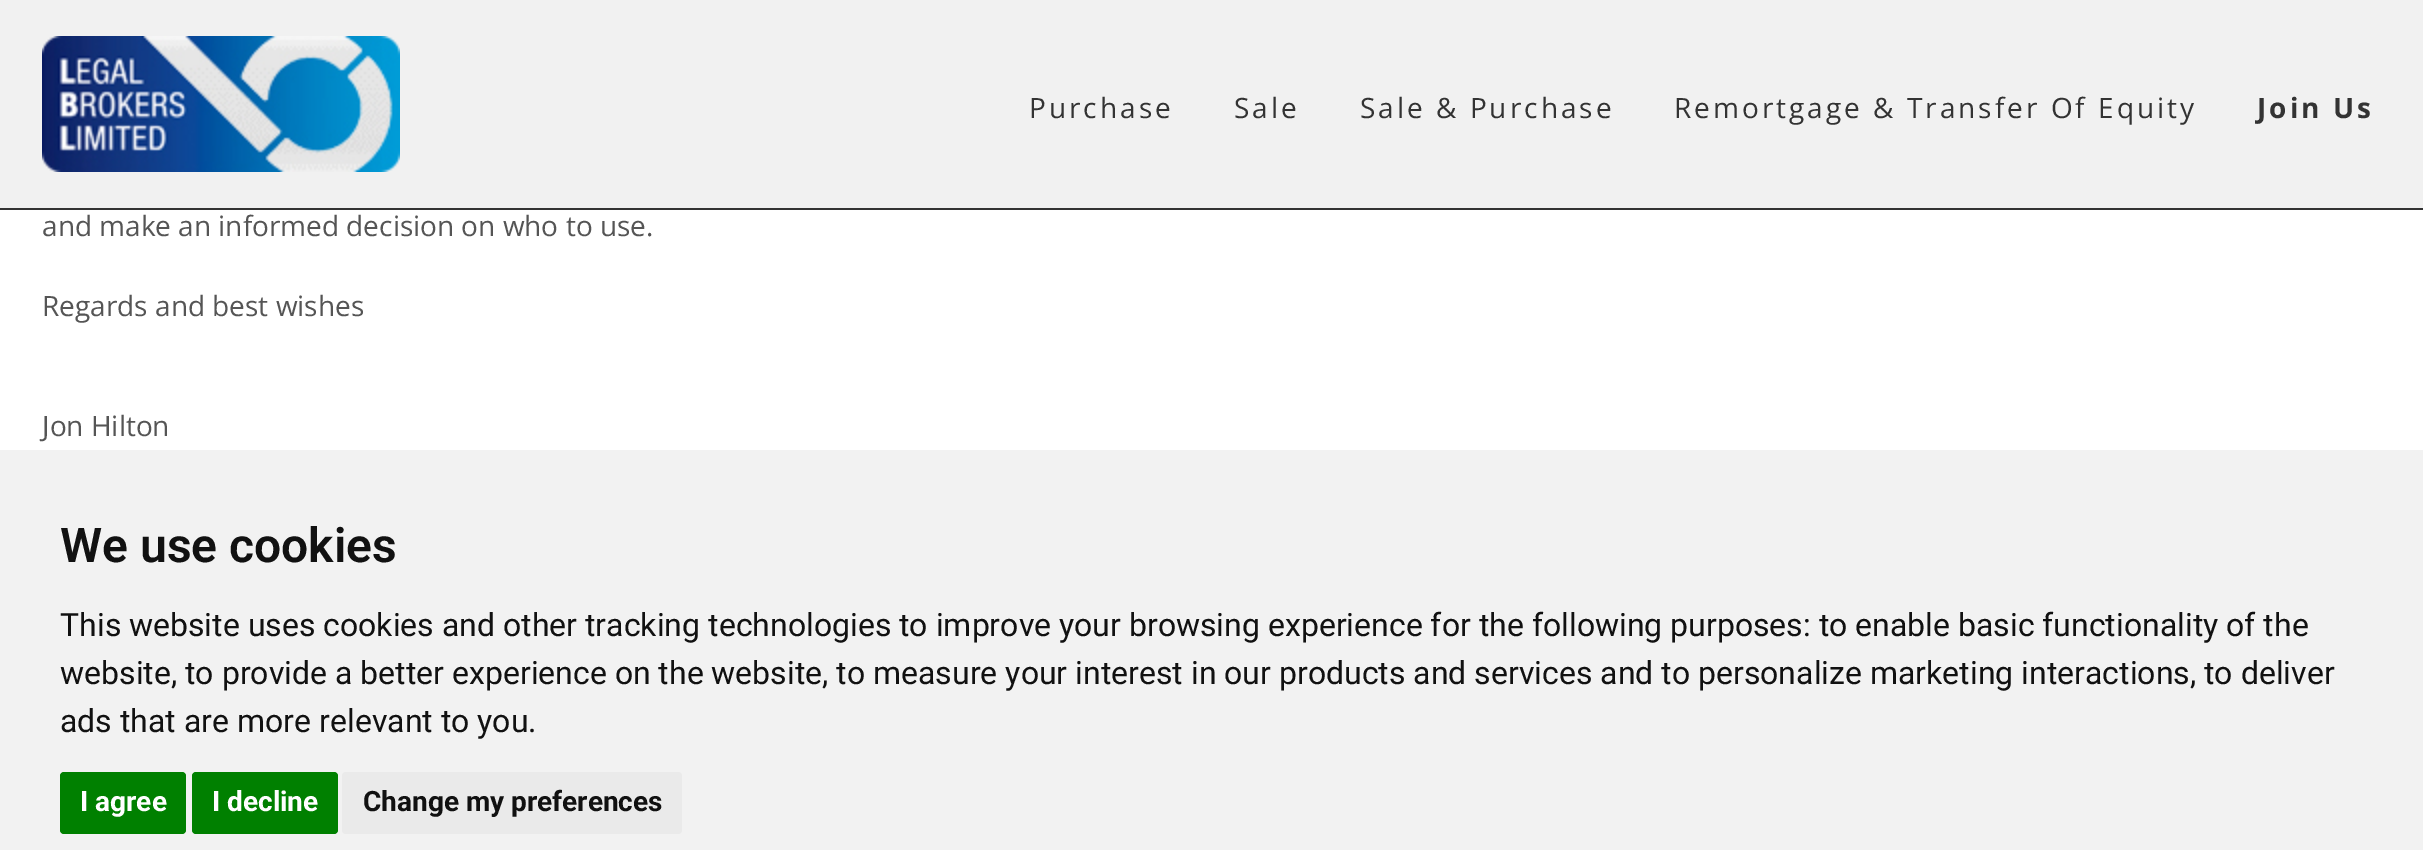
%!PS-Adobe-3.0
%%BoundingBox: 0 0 2423 850
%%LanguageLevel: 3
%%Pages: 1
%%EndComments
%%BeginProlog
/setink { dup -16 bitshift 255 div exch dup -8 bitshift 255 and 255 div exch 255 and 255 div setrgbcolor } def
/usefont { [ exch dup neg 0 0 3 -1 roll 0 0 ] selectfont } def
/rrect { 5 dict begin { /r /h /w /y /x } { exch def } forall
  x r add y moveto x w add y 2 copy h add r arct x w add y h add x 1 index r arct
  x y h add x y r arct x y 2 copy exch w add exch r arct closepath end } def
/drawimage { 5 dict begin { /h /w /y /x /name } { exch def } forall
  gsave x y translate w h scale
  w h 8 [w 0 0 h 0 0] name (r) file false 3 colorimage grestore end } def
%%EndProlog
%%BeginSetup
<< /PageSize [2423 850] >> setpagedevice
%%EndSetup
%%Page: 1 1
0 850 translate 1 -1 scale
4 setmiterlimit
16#FFFFFF setink
0 0 2423 850 rectfill
16#F1F1F1 setink
0 0 2423 208 rectfill
16#333333 setink
0 208 2423 2 rectfill
(img1.raw) 42 36 358 136 drawimage
/OpenSans-Regular 28 usefont
1029 118 moveto 3 0 (Purchase) ashow
1234 118 moveto 3 0 (Sale) ashow
1360 118 moveto 3 0 (Sale & Purchase) ashow
1674 118 moveto 3 0 (Remortgage & Transfer Of Equity) ashow
/OpenSans-Bold 28 usefont
2257 118 moveto 3 0 (Join Us) ashow
/OpenSans-Regular 28 usefont
16#555555 setink
[
    [(and make an informed decision on who to use.) 42 236]
    [(Regards and best wishes) 42 316]
    [(Jon Hilton) 42 436]
] { aload pop moveto show } forall
16#F2F2F2 setink
0 450 2423 400 rectfill
/Roboto-SemiBold 48 usefont
16#111111 setink
60 562 moveto (We use cookies) show
/Roboto-Regular 32 usefont
[
    [(This website uses cookies and other tracking technologies to improve your browsing experience for the following purposes: to enable basic functionality of the) 60 636]
    [(website, to provide a better experience on the website, to measure your interest in our products and services and to personalize marketing interactions, to deliver) 60 684]
    [(ads that are more relevant to you.) 60 732]
] { aload pop moveto show } forall
16#008000 setink
60 772 126 62 4 rrect fill
/Roboto-Bold 28 usefont
16#FFFFFF setink
80 811 moveto (I agree) show
16#008000 setink
192 772 146 62 4 rrect fill
16#FFFFFF setink
212 811 moveto (I decline) show
16#EAEAEA setink
342 772 340 62 4 rrect fill
16#111111 setink
363 811 moveto (Change my preferences) show
showpage
%%EOF
